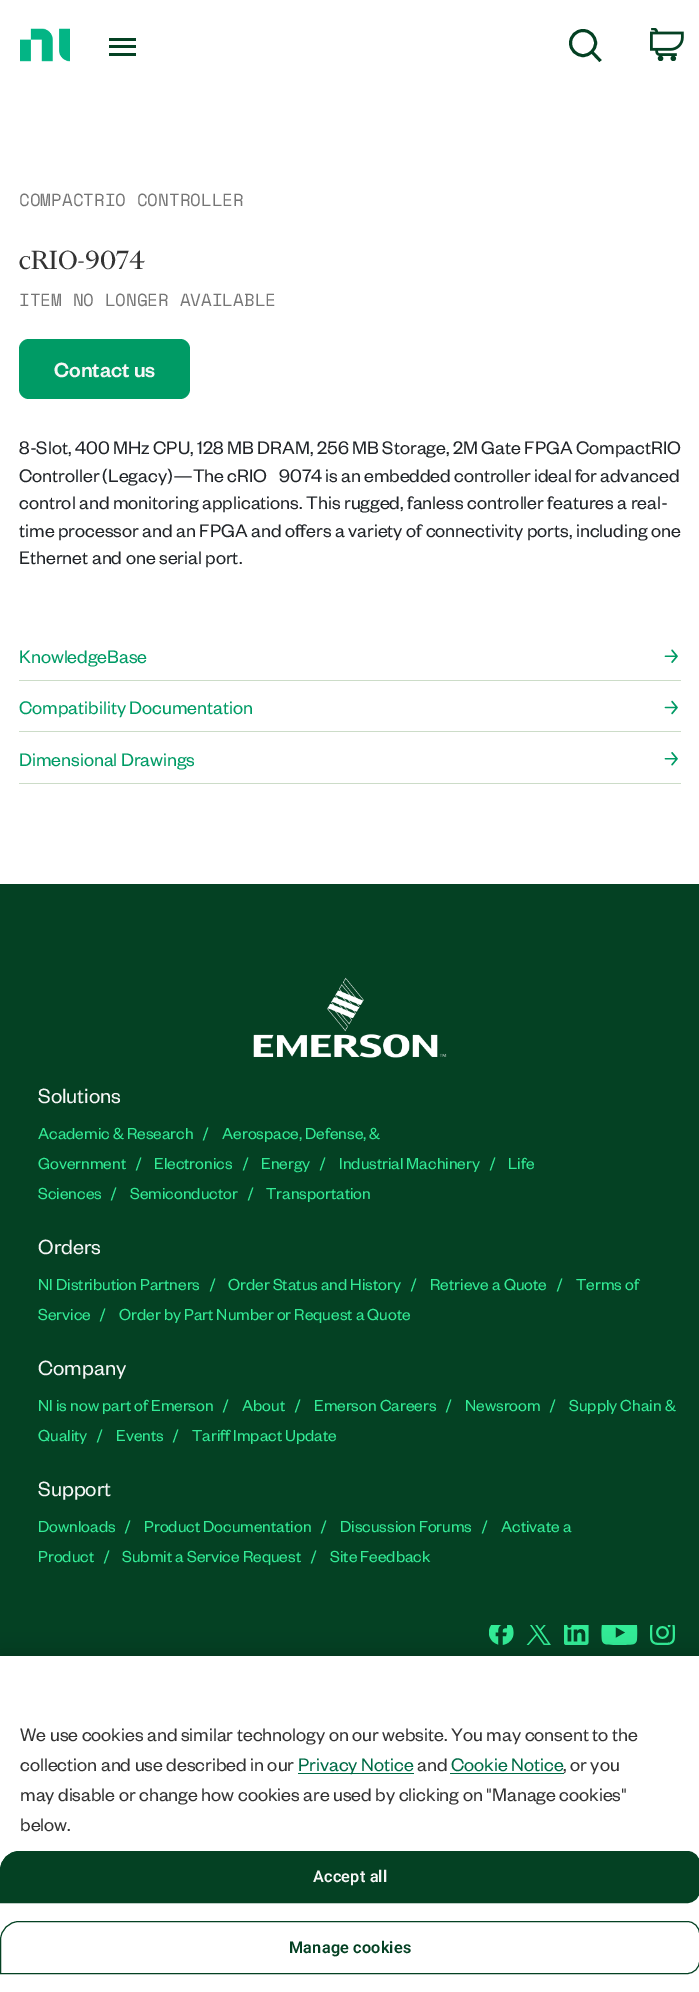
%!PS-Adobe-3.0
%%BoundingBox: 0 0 699 1992
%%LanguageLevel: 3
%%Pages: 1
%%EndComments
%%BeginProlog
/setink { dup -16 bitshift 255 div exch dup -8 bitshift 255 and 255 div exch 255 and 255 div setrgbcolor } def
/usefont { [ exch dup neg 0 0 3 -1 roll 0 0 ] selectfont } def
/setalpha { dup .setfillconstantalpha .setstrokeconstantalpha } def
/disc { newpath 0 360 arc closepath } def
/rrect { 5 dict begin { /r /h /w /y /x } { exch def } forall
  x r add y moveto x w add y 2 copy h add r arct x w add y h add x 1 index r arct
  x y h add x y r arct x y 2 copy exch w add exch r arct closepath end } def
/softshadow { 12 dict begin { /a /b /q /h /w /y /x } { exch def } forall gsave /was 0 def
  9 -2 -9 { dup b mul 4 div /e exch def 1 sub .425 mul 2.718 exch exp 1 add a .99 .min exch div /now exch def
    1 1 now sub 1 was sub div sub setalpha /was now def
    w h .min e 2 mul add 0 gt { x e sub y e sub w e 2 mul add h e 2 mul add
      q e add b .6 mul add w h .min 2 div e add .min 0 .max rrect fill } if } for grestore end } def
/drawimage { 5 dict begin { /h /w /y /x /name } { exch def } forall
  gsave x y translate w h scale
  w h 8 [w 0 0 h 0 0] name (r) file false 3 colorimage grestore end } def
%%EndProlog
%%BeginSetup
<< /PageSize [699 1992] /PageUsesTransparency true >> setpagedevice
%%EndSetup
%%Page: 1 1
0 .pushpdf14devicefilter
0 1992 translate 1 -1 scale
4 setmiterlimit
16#FFFFFF setink
0 0 699 1992 rectfill
(img1.raw) 20 28 50 34 drawimage
[
    [109 38 27 3 16#044123]
    [109 45 27 3 16#044123]
    [109 53 27 3 16#044123]
] { aload pop setink rectfill } forall
2.9 setlinewidth
583 43 12.5 disc stroke
592 52 moveto 600.5 61 lineto stroke
(img2.raw) 650 28 34 33 drawimage
/SpaceMono-Regular 17.5 usefont
16#767676 setink
19 206 moveto (COMPACTRIO CONTROLLER) show
/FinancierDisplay-Regular 30 usefont
16#333333 setink
19 269 moveto (cRIO-9074) show
/SpaceMono-Regular 17.5 usefont
16#767676 setink
19 306 moveto (ITEM NO LONGER AVAILABLE) show
16#009B65 setink
19 339 171 60 10 rrect fill
/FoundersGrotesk-Medium 22.5 usefont
16#F6F6F6 setink
54 377 moveto (Contact us) show
/FoundersGrotesk-Regular 20 usefont
16#212529 setink
19 454 moveto (8-Slot, 400 MHz CPU, 128 MB DRAM, 256 MB Storage, 2M Gate FPGA CompactRIO) show
19 482 moveto -0.5 0 32 (Controller \(Legacy\)—The cRIO‑9074 is an embedded controller ideal for advanced) widthshow
[
    [(control and monitoring applications. This rugged, fanless controller features a real-) 19 509]
    [(time processor and an FPGA and offers a variety of connectivity ports, including one) 19 537]
    [(Ethernet and one serial port.) 19 564]
] { aload pop moveto show } forall
16#CCDCC8 setink
19 680 662 1 rectfill
16#009B65 setink
19 663 moveto (KnowledgeBase) show
(img3.raw) 664 649 14 14 drawimage
16#CCDCC8 setink
19 731 662 1 rectfill
16#009B65 setink
19 714 moveto (Compatibility Documentation) show
(img4.raw) 664 700 14 15 drawimage
16#CCDCC8 setink
19 783 662 1 rectfill
16#009B65 setink
19 766 moveto (Dimensional Drawings) show
(img5.raw) 664 752 14 14 drawimage
16#044123 setink
0 884 699 772 rectfill
(img6.raw) 253 977 194 81 drawimage
/FoundersGrotesk-Regular 22.5 usefont
16#F6F6F6 setink
38 1103 moveto (Solutions) show
/FoundersGrotesk-Regular 17.5 usefont
16#32EB96 setink
[
    [(Academic & Research) 38 1139]
    [(/) 203 1139]
    [(Aerospace, Defense, &) 222 1139]
    [(Government) 38 1169]
    [(/) 136 1169]
    [(Electronics) 154 1169]
    [(/) 243 1169]
    [(Energy) 261 1169]
    [(/) 320 1169]
    [(Industrial Machinery) 339 1169]
    [(/) 490 1169]
    [(Life) 508 1169]
    [(Sciences) 38 1199]
    [(/) 111 1199]
    [(Semiconductor) 130 1199]
    [(/) 248 1199]
    [(Transportation) 266 1199]
] { aload pop moveto show } forall
/FoundersGrotesk-Regular 22.5 usefont
16#F6F6F6 setink
38 1254 moveto (Orders) show
/FoundersGrotesk-Regular 17.5 usefont
16#32EB96 setink
[
    [(NI Distribution Partners) 38 1290]
    [(/) 210 1290]
    [(Order Status and History) 228 1290]
    [(/) 411 1290]
    [(Retrieve a Quote) 430 1290]
    [(/) 557 1290]
    [(Terms of) 576 1290]
    [(Service) 38 1320]
    [(/) 100 1320]
    [(Order by Part Number or Request a Quote) 119 1320]
] { aload pop moveto show } forall
/FoundersGrotesk-Regular 22.5 usefont
16#F6F6F6 setink
38 1375 moveto (Company) show
/FoundersGrotesk-Regular 17.5 usefont
16#32EB96 setink
[
    [(NI is now part of Emerson) 38 1411]
    [(/) 223 1411]
    [(About) 242 1411]
    [(/) 295 1411]
    [(Emerson Careers) 314 1411]
    [(/) 446 1411]
    [(Newsroom) 465 1411]
    [(/) 550 1411]
    [(Supply Chain &) 569 1411]
    [(Quality) 38 1441]
    [(/) 97 1441]
    [(Events) 116 1441]
    [(/) 173 1441]
    [(Tariff Impact Update) 192 1441]
] { aload pop moveto show } forall
/FoundersGrotesk-Regular 22.5 usefont
16#F6F6F6 setink
38 1496 moveto (Support) show
/FoundersGrotesk-Regular 17.5 usefont
16#32EB96 setink
[
    [(Downloads) 38 1532]
    [(/) 125 1532]
    [(Product Documentation) 144 1532]
    [(/) 321 1532]
    [(Discussion Forums) 340 1532]
    [(/) 482 1532]
    [(Activate a) 501 1532]
    [(Product) 38 1562]
    [(/) 104 1562]
    [(Submit a Service Request) 122 1562]
    [(/) 311 1562]
    [(Site Feedback) 330 1562]
] { aload pop moveto show } forall
(img7.raw) 489 1625 25 20 drawimage
(img8.raw) 526 1625 25 20 drawimage
(img9.raw) 564 1625 25 20 drawimage
(img10.raw) 601 1625 37 20 drawimage
(img11.raw) 650 1625 25 20 drawimage
16#000000 setink
0 1656 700 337 0 11 0.2 softshadow
16#FFFFFF setink
0 1656 699 336 rectfill
/FoundersGrotesk-Regular 20 usefont
16#333333 setink
20 1741 moveto (We use cookies and similar technology on our website. You may consent to the) show
20 1771 moveto (collection and use described in our) show
16#006B46 setink
298 1773 116 1 rectfill
298 1771 moveto (Privacy Notice) show
16#333333 setink
417 1771 moveto (and) show
16#006B46 setink
451 1771 moveto (Cookie Notice) show
450 1773 114 1 rectfill
16#333333 setink
[
    [(, or you) 563 1771]
    [(may disable or change how cookies are used by clicking on "Manage cookies") 20 1801]
    [(below.) 20 1831]
] { aload pop moveto show } forall
16#044123 setink
19 1851.5 moveto 687 1851.5 lineto 694 1851.5 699.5 1857 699.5 1864 curveto 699.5 1890 lineto 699.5 1897 694 1902.5 687 1902.5 curveto 0.5 1902.5 lineto 0.5 1870 lineto 0.5 1860 9 1851.5 19 1851.5 curveto closepath gsave fill grestore
1 setlinewidth
stroke
/Roboto-SemiBold 16.25 usefont
16#F6F6F6 setink
313 1882 moveto 0.2 0 (Accept all) ashow
16#044123 setink
19 1921.5 moveto 687 1921.5 lineto 694 1921.5 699.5 1927 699.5 1934 curveto 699.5 1961 lineto 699.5 1968 694 1973.5 687 1973.5 curveto 0.5 1973.5 lineto 0.5 1940 lineto 0.5 1930 9 1921.5 19 1921.5 curveto closepath stroke
289 1953 moveto 0.2 0 (Manage cookies) ashow
.poppdf14devicefilter showpage
%%EOF
